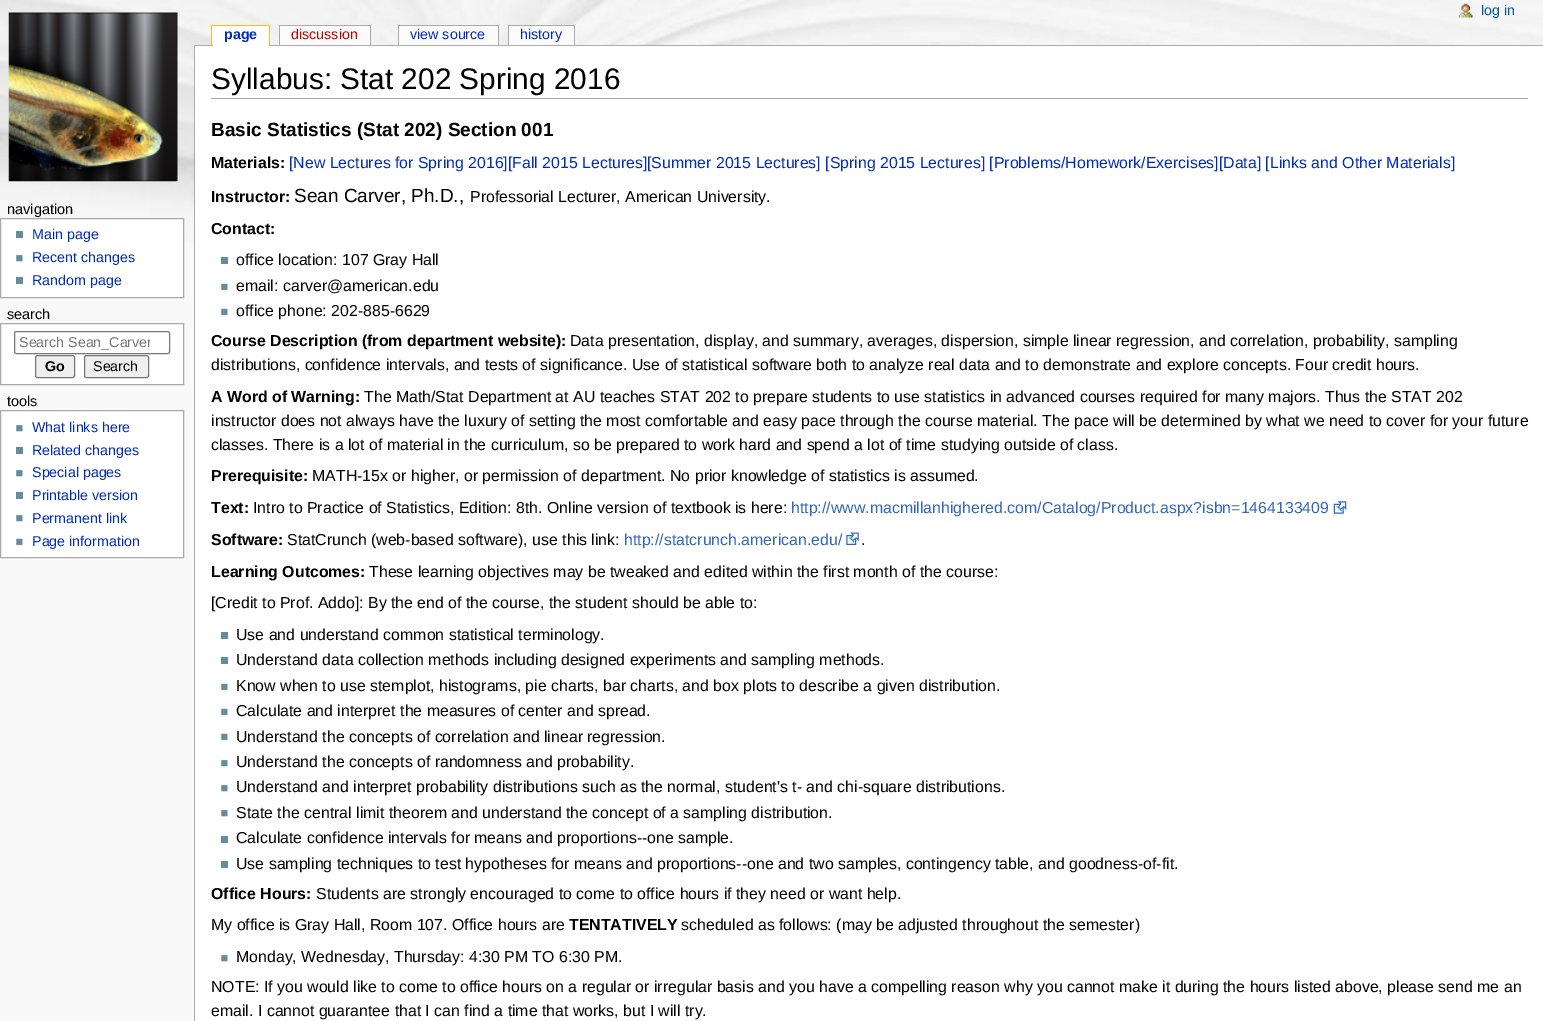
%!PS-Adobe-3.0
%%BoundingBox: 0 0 1543 1021
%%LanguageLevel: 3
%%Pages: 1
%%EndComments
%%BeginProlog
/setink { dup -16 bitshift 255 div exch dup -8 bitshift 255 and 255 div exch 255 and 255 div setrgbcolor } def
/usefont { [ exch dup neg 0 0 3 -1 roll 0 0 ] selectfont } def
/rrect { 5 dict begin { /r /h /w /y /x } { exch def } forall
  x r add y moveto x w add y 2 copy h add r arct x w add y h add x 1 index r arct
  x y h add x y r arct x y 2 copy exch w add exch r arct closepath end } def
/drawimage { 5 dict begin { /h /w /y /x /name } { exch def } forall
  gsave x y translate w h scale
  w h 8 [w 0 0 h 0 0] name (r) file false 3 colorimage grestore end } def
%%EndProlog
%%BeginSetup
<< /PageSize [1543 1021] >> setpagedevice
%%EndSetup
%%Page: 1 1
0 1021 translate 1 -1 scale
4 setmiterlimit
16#F9F9F9 setink
0 0 1543 1021 rectfill
(img1.raw) 0 0 1543 243 drawimage
(img2.raw) 8 12 170 170 drawimage
16#AAAAAA setink
194 45 1349 1 rectfill
16#FFFFFF setink
213 26 56 20 rectfill
/LiberationSans-Bold 14.25 usefont
16#002BB8 setink
224 39 moveto (page) show
[
    [212 26 1 19 16#FFFFFF]
    [211 25 59 1 16#FABD23]
    [269 25 1 20 16#FABD23]
    [211 25 1 20 16#FABD23]
    [280 26 90 19 16#FBFBFB]
] { aload pop setink rectfill } forall
/LiberationSans-Regular 14.25 usefont
16#BA0000 setink
291 39 moveto (discussion) show
[
    [279 25 92 1 16#AAAAAA]
    [370 25 1 20 16#AAAAAA]
    [279 25 1 20 16#AAAAAA]
    [399 26 99 19 16#FBFBFB]
] { aload pop setink rectfill } forall
16#002BB8 setink
410 39 moveto (view source) show
[
    [398 25 101 1 16#AAAAAA]
    [498 25 1 20 16#AAAAAA]
    [398 25 1 20 16#AAAAAA]
    [509 26 65 19 16#FBFBFB]
] { aload pop setink rectfill } forall
16#002BB8 setink
520 39 moveto (history) show
[
    [508 25 67 1 16#AAAAAA]
    [574 25 1 20 16#AAAAAA]
    [508 25 1 20 16#AAAAAA]
] { aload pop setink rectfill } forall
(img3.raw) 1458 3 15 15 drawimage
16#005896 setink
1481 15 moveto (log in) show
/LiberationSans-Regular 14.5 usefont
16#000000 setink
7 214 moveto (navigation) show
16#FFFFFF setink
0.5 218.5 moveto 183.5 218.5 lineto 183.5 297.5 lineto 0.5 297.5 lineto closepath gsave fill grestore
16#AAAAAA setink
stroke
16#638C9C setink
16 231 7 7 rectfill
/LiberationSans-Regular 14.25 usefont
16#002BB8 setink
32 239 moveto (Main page) show
(img4.raw) 16 254 7 8 drawimage
32 262 moveto (Recent changes) show
16#638C9C setink
16 277 7 7 rectfill
16#002BB8 setink
32 285 moveto (Random page) show
/LiberationSans-Regular 14.5 usefont
16#000000 setink
7 319 moveto (search) show
16#FFFFFF setink
0.5 323.5 moveto 183.5 323.5 lineto 183.5 384.5 lineto 0.5 384.5 lineto closepath gsave fill grestore
16#AAAAAA setink
stroke
16#767676 setink
14.5 331.5 155 22 2 rrect stroke
gsave
19 335 131 15 rectclip
/LiberationSans-Regular 14.25 usefont
16#757575 setink
19 347 moveto (Search Sean_Carver) show
grestore
16#EFEFEF setink
35.5 355.5 39 22 2 rrect gsave fill grestore
16#767676 setink
stroke
/LiberationSans-Bold 14.25 usefont
16#000000 setink
45 371 moveto (Go) show
16#EFEFEF setink
84.5 355.5 64 22 2 rrect gsave fill grestore
16#767676 setink
stroke
/LiberationSans-Regular 14.25 usefont
16#000000 setink
93 371 moveto (Search) show
/LiberationSans-Regular 14.5 usefont
7 406 moveto (tools) show
16#FFFFFF setink
0.5 410.5 moveto 183.5 410.5 lineto 183.5 557.5 lineto 0.5 557.5 lineto closepath gsave fill grestore
16#AAAAAA setink
stroke
(img4.raw) 16 424 7 8 drawimage
/LiberationSans-Regular 14.25 usefont
16#002BB8 setink
32 432 moveto (What links here) show
16#638C9C setink
16 447 7 7 rectfill
16#002BB8 setink
32 455 moveto (Related changes) show
(img4.raw) 16 469 7 8 drawimage
32 477 moveto (Special pages) show
16#638C9C setink
16 492 7 7 rectfill
16#002BB8 setink
32 500 moveto (Printable version) show
(img4.raw) 16 514 7 8 drawimage
32 523 moveto (Permanent link) show
(img5.raw) 16 538 7 8 drawimage
32 546 moveto (Page information) show
[
    [195 46 1348 975 16#FFFFFF]
    [194 45 1 976 16#AAAAAA]
    [211 98 1317 1 16#AAAAAA]
] { aload pop setink rectfill } forall
/LiberationSans-Regular 29.8 usefont
16#000000 setink
211 89 moveto (Syllabus: Stat 202 Spring 2016) show
/LiberationSans-Bold 19 usefont
211 136 moveto (Basic Statistics \(Stat 202\) Section 001) show
/LiberationSans-Bold 15.88 usefont
211 168 moveto (Materials:) show
/LiberationSans-Regular 15.88 usefont
16#002BB8 setink
289 168 moveto ([New Lectures for Spring 2016][Fall 2015 Lectures]) show
647 168 moveto ([Summer 2015 Lectures] [Spring 2015 Lectures] [Problems/Homework/Exercises][Data] [Links and Other Materials]) show
/LiberationSans-Bold 15.88 usefont
16#000000 setink
211 202 moveto (Instructor:) show
/LiberationSans-Regular 19 usefont
294 202 moveto (Sean Carver, Ph.D.,) show
/LiberationSans-Regular 15.88 usefont
470 202 moveto (Professorial Lecturer, American University.) show
/LiberationSans-Bold 15.88 usefont
211 234 moveto (Contact:) show
16#638C9C setink
221 257 7 7 rectfill
/LiberationSans-Regular 15.88 usefont
16#000000 setink
236 265 moveto (office location: 107 Gray Hall) show
(img5.raw) 221 283 7 8 drawimage
236 291 moveto (email: carver@american.edu) show
(img5.raw) 221 308 7 8 drawimage
236 316 moveto (office phone: 202-885-6629) show
/LiberationSans-Bold 15.88 usefont
211 346 moveto (Course Description \(from department website\):) show
/LiberationSans-Regular 15.88 usefont
570 346 moveto (Data presentation, display, and summary, averages, dispersion, simple linear regression, and correlation, probability, sampling) show
211 370 moveto (distributions, confidence intervals, and tests of significance. Use of statistical software both to analyze real data and to demonstrate and explore concepts. Four credit hours.) show
/LiberationSans-Bold 15.88 usefont
211 402 moveto (A Word of Warning:) show
/LiberationSans-Regular 15.88 usefont
[
    [(The Math/Stat Department at AU teaches STAT 202 to prepare students to use statistics in advanced courses required for many majors. Thus the STAT 202) 364 402]
    [(instructor does not always have the luxury of setting the most comfortable and easy pace through the course material. The pace will be determined by what we need to cover for your future) 211 426]
    [(classes. There is a lot of material in the curriculum, so be prepared to work hard and spend a lot of time studying outside of class.) 211 450]
] { aload pop moveto show } forall
/LiberationSans-Bold 15.88 usefont
211 481 moveto (Prerequisite:) show
/LiberationSans-Regular 15.88 usefont
312 481 moveto (MATH-15x or higher, or permission of department.) show
670 481 moveto (No prior knowledge of statistics is assumed.) show
/LiberationSans-Bold 15.88 usefont
211 513 moveto (Text:) show
/LiberationSans-Regular 15.88 usefont
253 513 moveto (Intro to Practice of Statistics, Edition: 8th.) show
547 513 moveto (Online version of textbook is here:) show
16#3366BB setink
791 513 moveto (http://www.macmillanhighered.com/Catalog/Product.aspx?isbn=1464133409) show
(img6.raw) 1333 501 14 13 drawimage
/LiberationSans-Bold 15.88 usefont
16#000000 setink
211 545 moveto (Software:) show
/LiberationSans-Regular 15.88 usefont
287 545 moveto (StatCrunch \(web-based software\), use this link:) show
16#3366BB setink
624 545 moveto (http://statcrunch.american.edu/) show
(img7.raw) 846 532 13 13 drawimage
16#000000 setink
861 545 moveto (.) show
/LiberationSans-Bold 15.88 usefont
211 577 moveto (Learning Outcomes:) show
/LiberationSans-Regular 15.88 usefont
369 577 moveto (These learning objectives may be tweaked and edited within the first month of the course:) show
211 608 moveto ([Credit to Prof. Addo]: By the end of the course, the student should be able to:) show
16#638C9C setink
221 632 7 7 rectfill
16#000000 setink
236 640 moveto (Use and understand common statistical terminology.) show
16#638C9C setink
221 657 7 7 rectfill
16#000000 setink
236 665 moveto (Understand data collection methods including designed experiments and sampling methods.) show
(img5.raw) 221 683 7 8 drawimage
236 691 moveto (Know when to use stemplot, histograms, pie charts, bar charts, and box plots to describe a given distribution.) show
(img5.raw) 221 708 7 8 drawimage
236 716 moveto (Calculate and interpret the measures of center and spread.) show
(img5.raw) 221 733 7 8 drawimage
236 742 moveto (Understand the concepts of correlation and linear regression.) show
(img4.raw) 221 759 7 8 drawimage
236 767 moveto (Understand the concepts of randomness and probability.) show
(img4.raw) 221 784 7 8 drawimage
236 792 moveto (Understand and interpret probability distributions such as the normal, student's t- and chi-square distributions.) show
(img4.raw) 221 809 7 8 drawimage
236 818 moveto (State the central limit theorem and understand the concept of a sampling distribution.) show
16#638C9C setink
221 836 7 7 rectfill
16#000000 setink
236 843 moveto (Calculate confidence intervals for means and proportions--one sample.) show
16#638C9C setink
221 861 7 7 rectfill
16#000000 setink
236 869 moveto (Use sampling techniques to test hypotheses for means and proportions--one and two samples, contingency table, and goodness-of-fit.) show
/LiberationSans-Bold 15.88 usefont
211 899 moveto (Office Hours:) show
/LiberationSans-Regular 15.88 usefont
316 899 moveto (Students are strongly encouraged to come to office hours if they need or want help.) show
211 930 moveto (My office is Gray Hall, Room 107. Office hours are) show
/LiberationSans-Bold 15.88 usefont
569 930 moveto (TENTATIVELY) show
/LiberationSans-Regular 15.88 usefont
681 930 moveto (scheduled as follows: \(may be adjusted throughout the semester\)) show
(img4.raw) 221 954 7 8 drawimage
[
    [(Monday, Wednesday, Thursday: 4:30 PM TO 6:30 PM.) 236 962]
    [(NOTE: If you would like to come to office hours on a regular or irregular basis and you have a compelling reason why you cannot make it during the hours listed above, please send me an) 211 992]
    [(email. I cannot guarantee that I can find a time that works, but I will try.) 211 1016]
] { aload pop moveto show } forall
showpage
%%EOF
